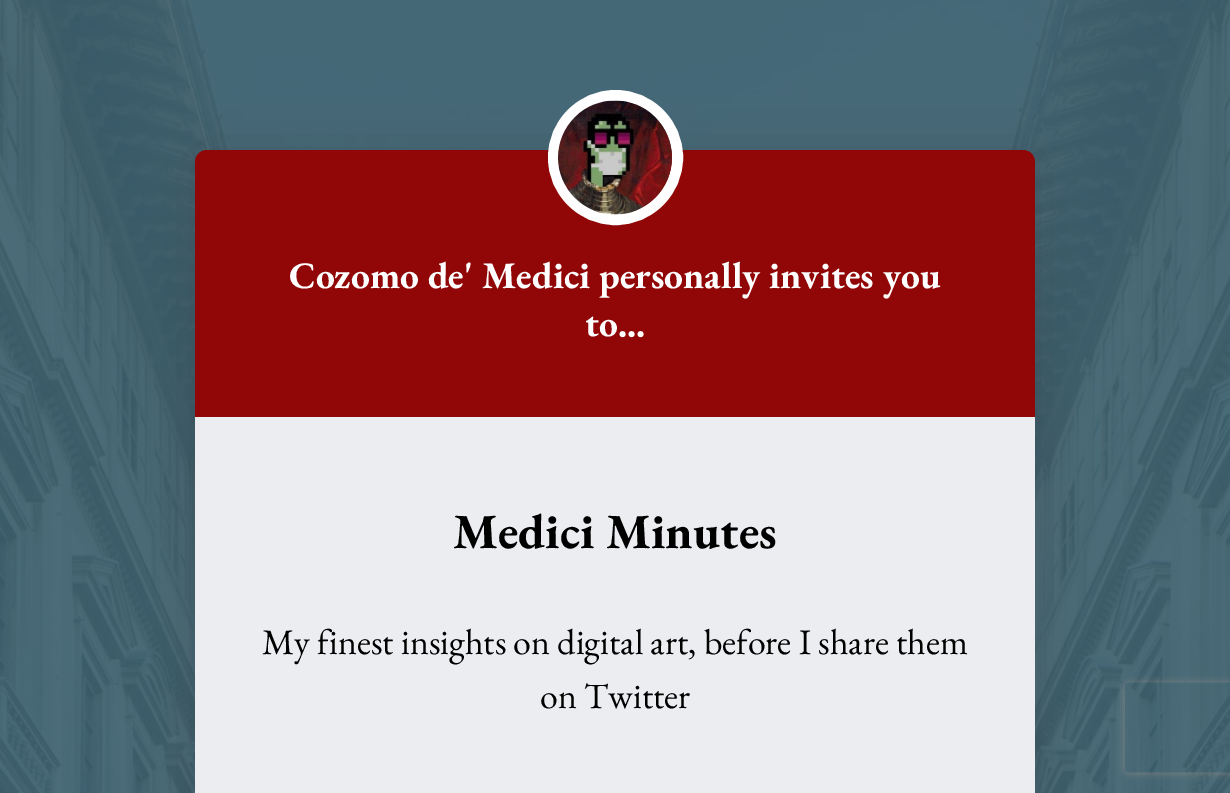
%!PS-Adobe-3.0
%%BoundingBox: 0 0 1230 793
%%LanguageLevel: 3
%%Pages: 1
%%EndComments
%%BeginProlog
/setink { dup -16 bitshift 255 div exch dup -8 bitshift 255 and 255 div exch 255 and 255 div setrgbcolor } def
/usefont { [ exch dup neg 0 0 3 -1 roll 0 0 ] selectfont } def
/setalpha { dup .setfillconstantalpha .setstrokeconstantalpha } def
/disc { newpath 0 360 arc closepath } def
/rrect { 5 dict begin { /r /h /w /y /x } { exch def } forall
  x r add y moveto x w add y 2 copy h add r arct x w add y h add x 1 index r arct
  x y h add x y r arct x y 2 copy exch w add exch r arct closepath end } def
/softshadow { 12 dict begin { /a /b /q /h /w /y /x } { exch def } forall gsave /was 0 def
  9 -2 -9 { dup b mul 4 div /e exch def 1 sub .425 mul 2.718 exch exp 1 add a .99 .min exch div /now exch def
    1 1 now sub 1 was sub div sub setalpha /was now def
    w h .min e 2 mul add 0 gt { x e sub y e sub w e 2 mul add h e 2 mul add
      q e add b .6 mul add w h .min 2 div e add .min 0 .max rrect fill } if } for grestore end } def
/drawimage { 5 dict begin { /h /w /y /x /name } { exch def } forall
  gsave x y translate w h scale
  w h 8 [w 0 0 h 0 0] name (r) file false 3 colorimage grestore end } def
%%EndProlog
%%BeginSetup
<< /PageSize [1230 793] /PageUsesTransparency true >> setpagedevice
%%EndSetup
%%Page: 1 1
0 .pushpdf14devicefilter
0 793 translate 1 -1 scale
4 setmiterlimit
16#3D616F setink
0 0 1230 793 rectfill
gsave
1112 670 moveto 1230 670 lineto 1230 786 lineto 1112 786 lineto closepath 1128 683 moveto 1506 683 lineto 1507.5 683 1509 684.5 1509 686 curveto 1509 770 lineto 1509 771.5 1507.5 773 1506 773 curveto 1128 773 lineto 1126.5 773 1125 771.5 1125 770 curveto 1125 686 lineto 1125 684.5 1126.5 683 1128 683 curveto closepath eoclip newpath
16#7B7E7F setink
1125 683 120 90 3 4 1 softshadow
grestore
(img1.raw) 0 0 1230 793 drawimage
16#333333 setink
195 153 840 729 12 25.5 0.25 softshadow
16#910707 setink
195 150 840 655 12 rrect fill
16#FFFFFF setink
11 setlinewidth
615.5 157.5 62 disc stroke
(img2.raw) 558 100 114 115 drawimage
/EBGaramond-Bold 37.5 usefont
289 288 moveto (Cozomo de' Medici personally invites you) show
585 336 moveto (to...) show
16#EBEDF0 setink
195 417 840 376 rectfill
/EBGaramond-Bold 49 usefont
16#000000 setink
453 548 moveto (Medici Minutes) show
/EBGaramond-Regular 36 usefont
262 654 moveto (My finest insights on digital art, before I share them) show
540 708 moveto (on Twitter) show
.poppdf14devicefilter showpage
%%EOF
